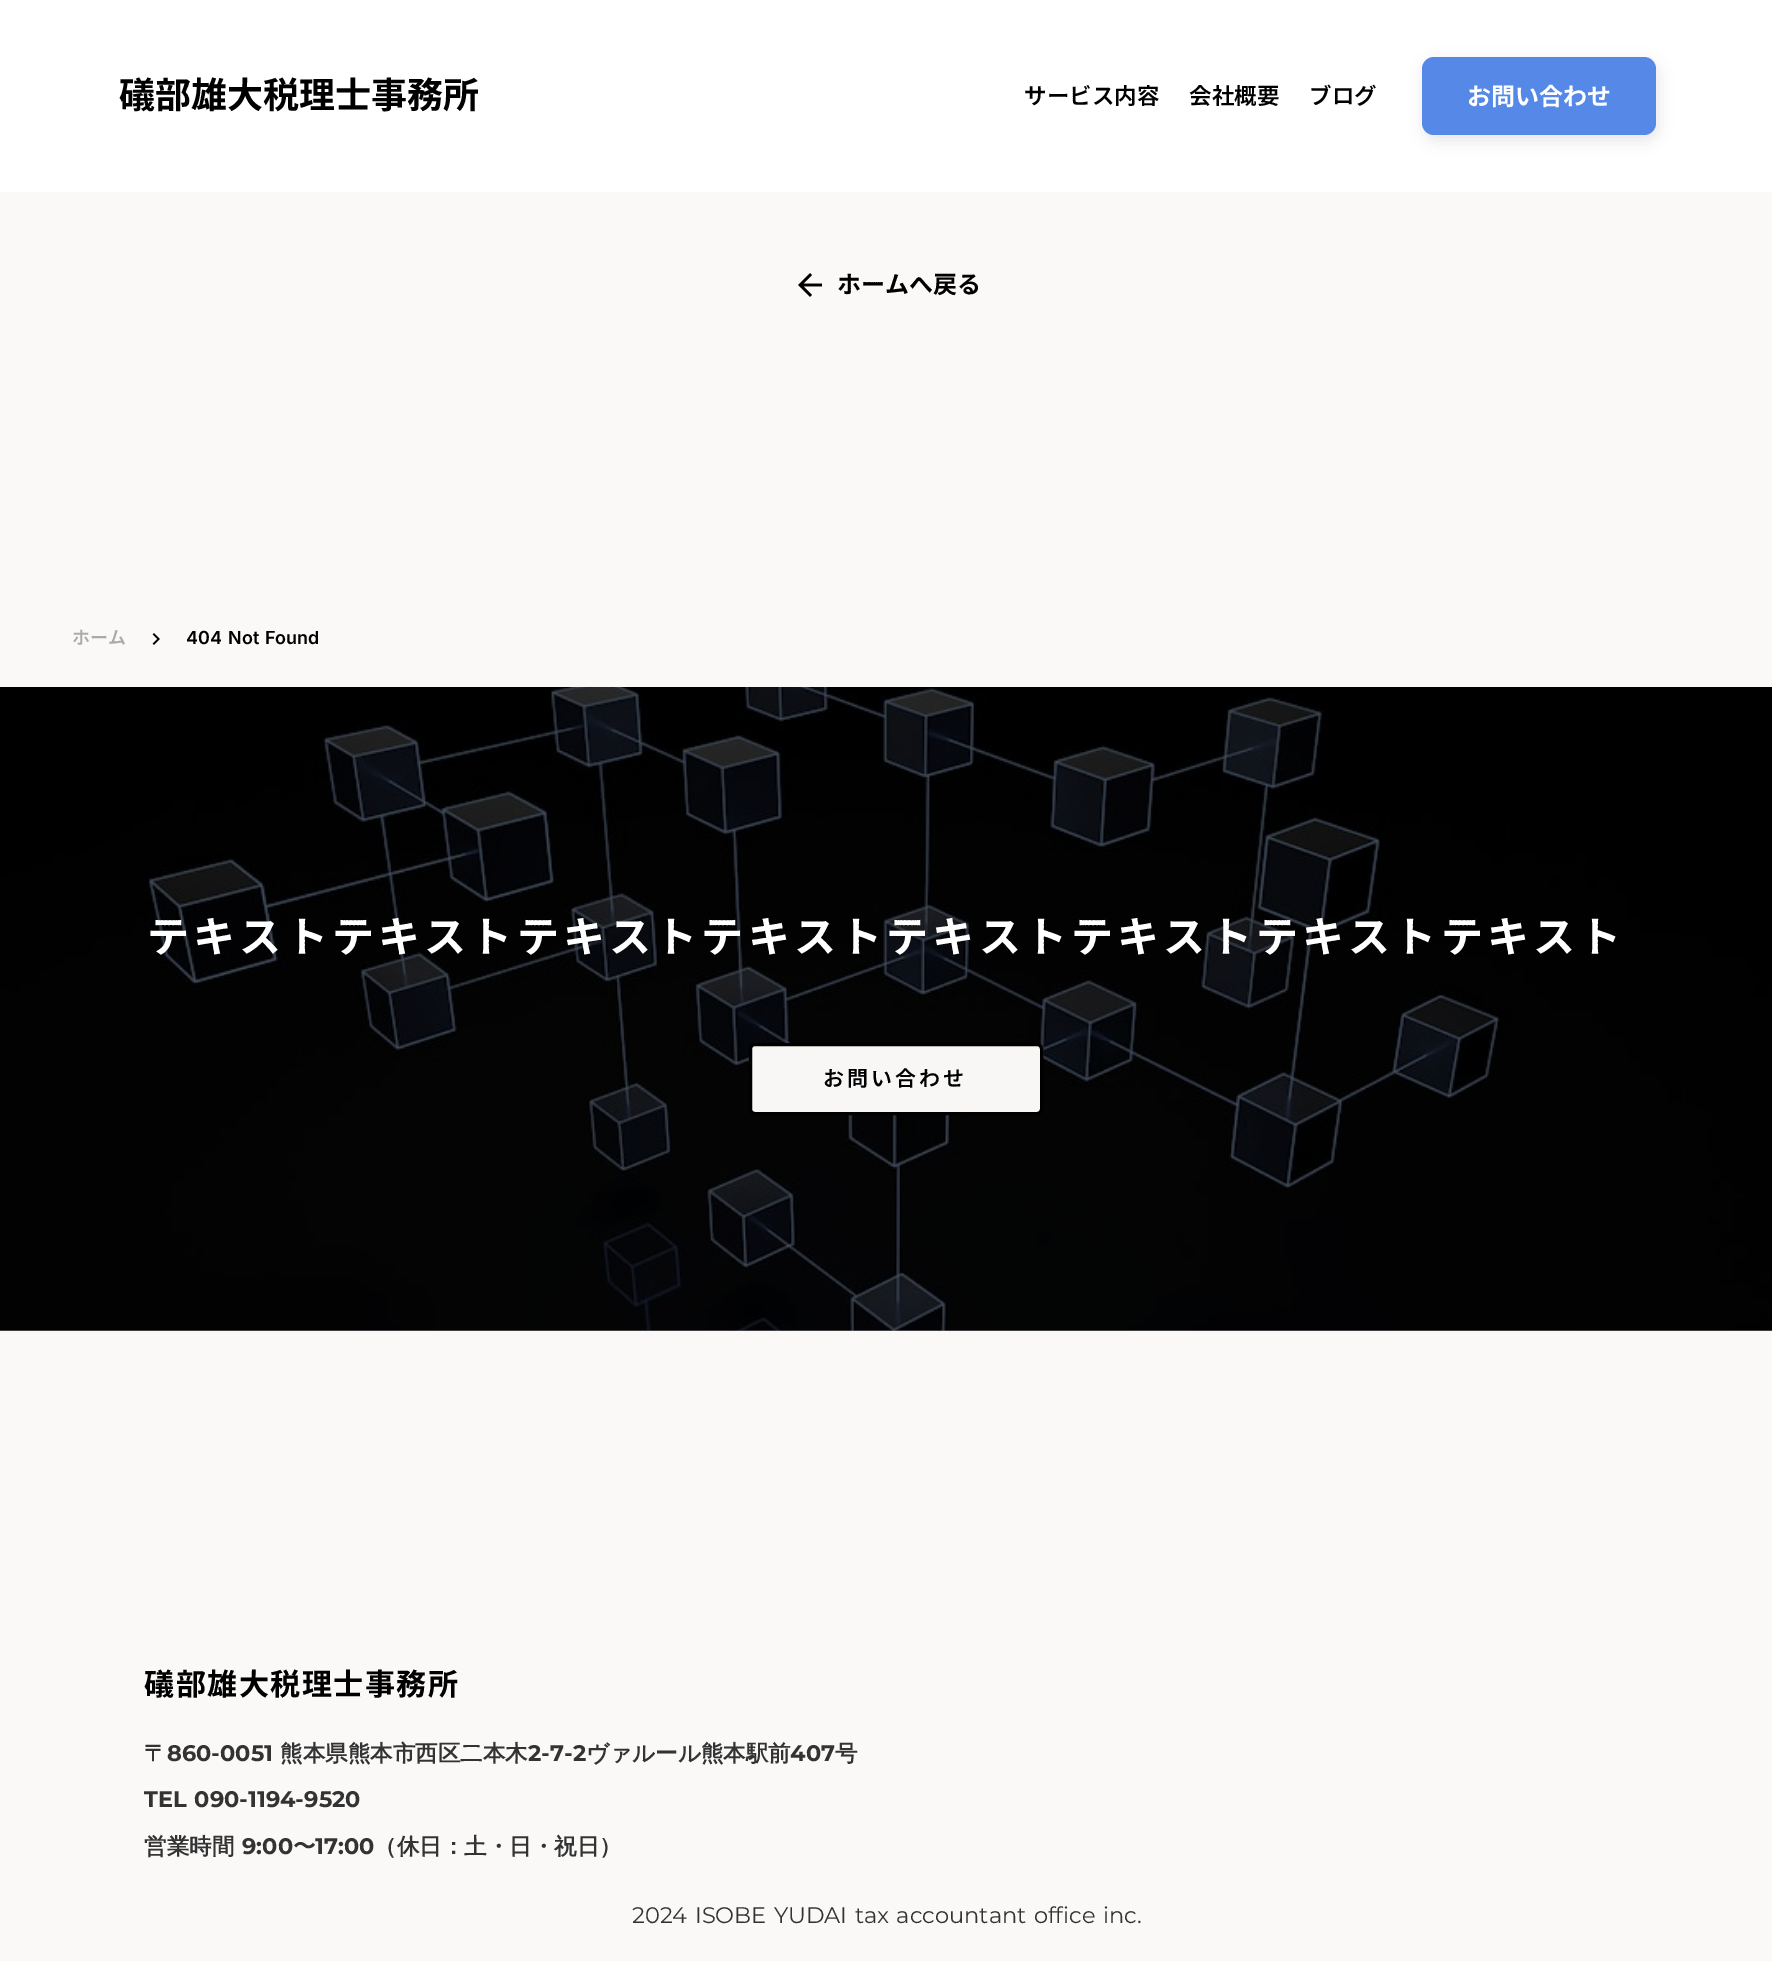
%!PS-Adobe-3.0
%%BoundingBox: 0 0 1772 1961
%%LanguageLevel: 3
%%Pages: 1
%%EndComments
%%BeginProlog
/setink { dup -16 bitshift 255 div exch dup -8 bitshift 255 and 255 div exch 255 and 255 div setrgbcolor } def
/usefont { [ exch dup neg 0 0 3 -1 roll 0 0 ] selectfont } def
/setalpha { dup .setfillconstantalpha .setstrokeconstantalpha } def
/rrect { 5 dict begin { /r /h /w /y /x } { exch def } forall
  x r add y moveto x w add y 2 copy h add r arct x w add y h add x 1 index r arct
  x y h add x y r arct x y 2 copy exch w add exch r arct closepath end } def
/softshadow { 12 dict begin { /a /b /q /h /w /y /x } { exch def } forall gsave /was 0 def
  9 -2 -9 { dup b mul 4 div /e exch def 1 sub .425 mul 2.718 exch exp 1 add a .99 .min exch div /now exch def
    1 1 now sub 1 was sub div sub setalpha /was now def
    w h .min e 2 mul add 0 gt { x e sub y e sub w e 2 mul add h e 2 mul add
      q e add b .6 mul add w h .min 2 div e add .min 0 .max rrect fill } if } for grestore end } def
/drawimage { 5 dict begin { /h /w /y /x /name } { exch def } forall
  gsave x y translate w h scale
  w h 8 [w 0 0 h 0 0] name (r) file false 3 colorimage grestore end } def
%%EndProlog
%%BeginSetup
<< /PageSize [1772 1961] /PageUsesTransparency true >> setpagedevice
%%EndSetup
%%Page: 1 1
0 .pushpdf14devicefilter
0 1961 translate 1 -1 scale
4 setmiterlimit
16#FAF9F8 setink
0 0 1772 1961 rectfill
16#FFFFFF setink
0 0 1772 192 rectfill
/NotoSansJP-Bold 36 usefont
16#000000 setink
119 108 moveto (礒部雄大税理士事務所) show
/NotoSansJP-SemiBold 22.5 usefont
[
    [(サービス内容) 1024 104]
    [(会社概要) 1189 104]
    [(ブログ) 1309 104]
] { aload pop moveto show } forall
1424 62 234 78 12 7.5 0.1 softshadow
16#5689E7 setink
1422 57 234 78 12 rrect fill
/NotoSansJP-Bold 24 usefont
16#FFFFFF setink
1467 105 moveto (お問い合わせ) show
(img1.raw) 798 273 25 24 drawimage
16#000000 setink
837 293 moveto (ホームへ戻る) show
/NotoSansJP-SemiBold 18 usefont
16#AAAAAA setink
72 644 moveto (ホーム) show
(img2.raw) 152 633 8 12 drawimage
/Inter-SemiBold 18 usefont
16#000000 setink
186 644 moveto 1.5 0 32 (404 Not Found) widthshow
16#808080 setink
0 1330 1772 1 rectfill
(img3.raw) 0 687 1772 644 drawimage
/NotoSansJP-Bold 42 usefont
16#FFFFFF setink
147 952 moveto 4.2 0 (テキストテキストテキストテキストテキストテキストテキストテキスト) ashow
16#F8F7F6 setink
750.5 1044.5 291 69 4.5 rrect gsave fill grestore
16#000000 setink
3 setlinewidth
stroke
/NotoSansJP-SemiBold 21 usefont
823 1086 moveto 3 0 (お問い合わせ) ashow
/NotoSansJP-Bold 30 usefont
144 1695 moveto 1.5 0 (礒部雄大税理士事務所) ashow
/WenQuanYiZenHei-Bold 22.5 usefont
16#333333 setink
144 1761 moveto (〒) show
/Montserrat-Bold 22.5 usefont
167 1761 moveto (860-0051) show
/WenQuanYiZenHei-Bold 22.5 usefont
280 1761 moveto (熊本県熊本市西区二本木) show
/Montserrat-Bold 22.5 usefont
528 1761 moveto (2-7-2) show
/WenQuanYiZenHei-Bold 22.5 usefont
586 1761 moveto (ヴァルール熊本駅前) show
/Montserrat-Bold 22.5 usefont
790 1761 moveto (407) show
/WenQuanYiZenHei-Bold 22.5 usefont
835 1761 moveto (号) show
/Montserrat-Bold 22.5 usefont
144 1807 moveto 1.5 0 32 (TEL 090-1194-9520) widthshow
/WenQuanYiZenHei-Bold 22.5 usefont
144 1854 moveto (営業時間) show
/Montserrat-Bold 22.5 usefont
242 1854 moveto (9:00) show
/WenQuanYiZenHei-Bold 22.5 usefont
293 1854 moveto (〜) show
/Montserrat-Bold 22.5 usefont
315 1854 moveto (17:00) show
/WenQuanYiZenHei-Bold 22.5 usefont
374 1854 moveto (（休日：土・日・祝日）) show
/Montserrat-Regular 22.5 usefont
632 1923 moveto 1.5 0 32 (2024 ISOBE YUDAI tax accountant office inc.) widthshow
.poppdf14devicefilter showpage
%%EOF
